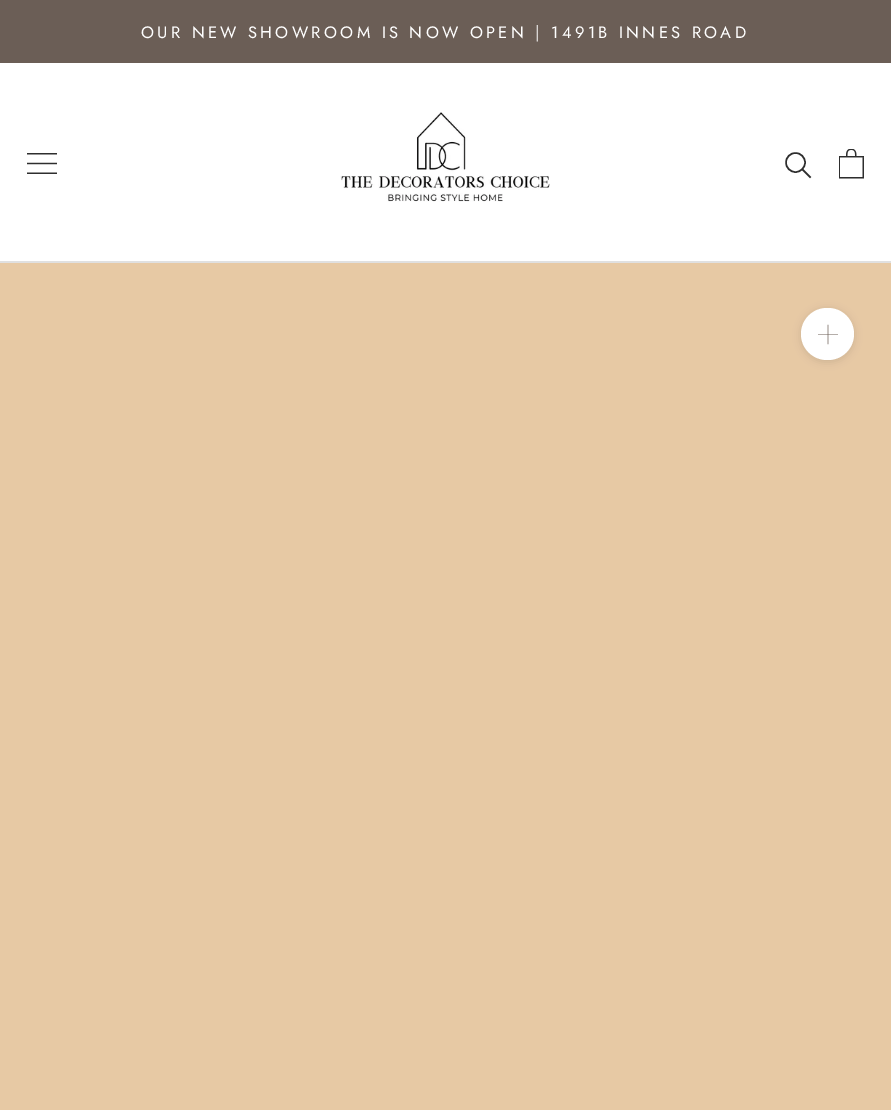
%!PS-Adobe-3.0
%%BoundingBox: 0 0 891 1110
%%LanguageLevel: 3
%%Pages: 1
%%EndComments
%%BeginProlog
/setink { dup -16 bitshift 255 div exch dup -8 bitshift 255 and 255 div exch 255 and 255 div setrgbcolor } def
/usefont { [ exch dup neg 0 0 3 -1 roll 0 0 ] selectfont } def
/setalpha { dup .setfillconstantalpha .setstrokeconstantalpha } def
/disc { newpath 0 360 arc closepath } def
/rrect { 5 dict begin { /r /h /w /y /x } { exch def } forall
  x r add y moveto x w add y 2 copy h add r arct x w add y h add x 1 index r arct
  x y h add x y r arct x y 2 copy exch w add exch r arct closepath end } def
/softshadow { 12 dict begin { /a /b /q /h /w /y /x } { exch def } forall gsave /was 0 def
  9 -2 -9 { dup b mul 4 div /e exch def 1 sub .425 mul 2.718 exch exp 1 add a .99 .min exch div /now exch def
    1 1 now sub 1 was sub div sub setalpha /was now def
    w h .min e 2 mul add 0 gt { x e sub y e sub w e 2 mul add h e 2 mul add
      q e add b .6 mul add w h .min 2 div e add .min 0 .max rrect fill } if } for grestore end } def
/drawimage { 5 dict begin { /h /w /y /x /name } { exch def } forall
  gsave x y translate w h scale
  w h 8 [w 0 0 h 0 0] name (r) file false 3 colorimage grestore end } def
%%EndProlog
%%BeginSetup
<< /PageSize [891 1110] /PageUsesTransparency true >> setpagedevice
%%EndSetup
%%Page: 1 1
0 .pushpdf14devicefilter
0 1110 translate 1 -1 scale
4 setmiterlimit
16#6B5E56 setink
0 0 891 1110 rectfill
/Jost-Regular 16.5 usefont
16#FFFFFF setink
141 38 moveto 3.3 0 (OUR NEW SHOWROOM IS NOW OPEN | 1491B INNES ROAD) ashow
0 63 891 198 rectfill
16#E0E0E0 setink
0 261 891 2 rectfill
(img1.raw) 27 153 30 21 drawimage
(img2.raw) 340 112 210 90 drawimage
16#2E2E2E setink
1.5 setlinewidth
2 setlinecap
810 177 moveto 802.5 169.5 lineto stroke
0 setlinecap
795.5 162.5 9.5 disc stroke
(img3.raw) 839 149 25 30 drawimage
16#E7C9A4 setink
0 263 891 847 rectfill
16#363636 setink
801 309 53 53 26.5 4 0.15 softshadow
16#FFFFFF setink
801 308 53 52 26 rrect fill
16#B5AFAB setink
1.3 setlinewidth
2 setlinecap
828 325.5 moveto 828 343.5 lineto stroke
0.5 setalpha
16#6B5E56 setink
818 334 20 1 rectfill
.poppdf14devicefilter showpage
%%EOF
